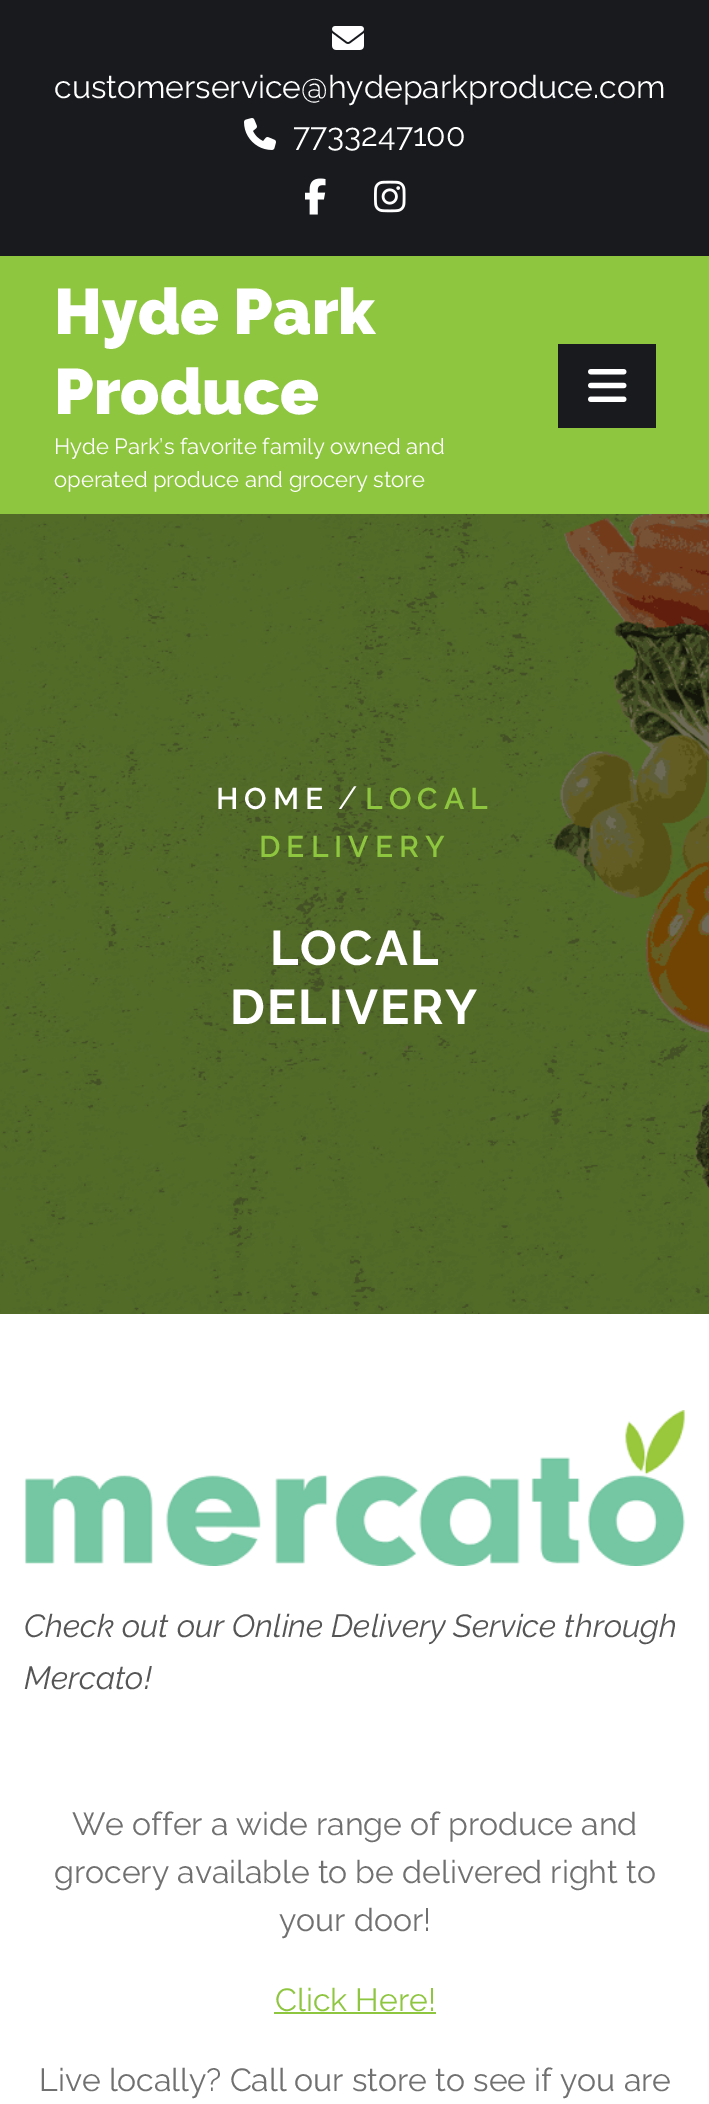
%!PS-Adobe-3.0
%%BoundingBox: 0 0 709 2104
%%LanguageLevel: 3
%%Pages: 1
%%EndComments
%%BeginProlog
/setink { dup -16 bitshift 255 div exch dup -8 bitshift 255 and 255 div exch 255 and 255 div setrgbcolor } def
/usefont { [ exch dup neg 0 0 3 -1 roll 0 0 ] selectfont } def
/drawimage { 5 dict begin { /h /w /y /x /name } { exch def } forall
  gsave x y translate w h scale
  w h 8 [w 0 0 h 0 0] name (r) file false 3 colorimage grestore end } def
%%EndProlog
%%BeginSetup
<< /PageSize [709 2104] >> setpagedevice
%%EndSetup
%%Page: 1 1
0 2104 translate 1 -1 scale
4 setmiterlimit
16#FFFFFF setink
0 0 709 2104 rectfill
16#181A1E setink
0 0 709 256 rectfill
(img1.raw) 332 26 32 24 drawimage
/Raleway-Regular 32 usefont
16#FFFFFF setink
54 98 moveto (customerservice@hydeparkproduce.com) show
(img2.raw) 244 118 32 32 drawimage
293 146 moveto (7733247100) show
(img3.raw) 305 178 21 37 drawimage
(img4.raw) 374 180 32 33 drawimage
16#8EC63F setink
0 256 709 258 rectfill
/Raleway-Black 64 usefont
16#FFFFFF setink
54 334 moveto (Hyde Park) show
54 414 moveto (Produce) show
/Raleway-Regular 22 usefont
54 454 moveto (Hyde Park’s favorite family owned and) show
54 487 moveto (operated produce and grocery store) show
16#181A1E setink
558 344 98 84 rectfill
(img5.raw) 588 369 39 33 drawimage
16#000000 setink
0 514 709 800 rectfill
(img6.raw) 0 514 709 800 drawimage
/Raleway-SemiBold 30 usefont
16#FFFFFF setink
216 809 moveto 6 0 (HOME) ashow
/Raleway-Regular 32 usefont
338 809 moveto (/) show
/Raleway-SemiBold 30 usefont
16#8EC63F setink
365 809 moveto 6 0 (LOCAL) ashow
259 857 moveto 6 0 (DELIVERY) ashow
/Raleway-Bold 48.75 usefont
16#FFFFFF setink
270 965 moveto 2 0 (LOCAL) ashow
230 1024 moveto 2 0 (DELIVERY) ashow
(img7.raw) 25 1410 660 156 drawimage
/Raleway-ThinItalic 32 usefont
16#555555 setink
24 1637 moveto (Check out our Online Delivery Service through) show
24 1689 moveto (Mercato!) show
/Raleway-Regular 32 usefont
16#707070 setink
[
    [(We offer a wide range of produce and) 72 1835]
    [(grocery available to be delivered right to) 54 1883]
    [(your door!) 279 1931]
] { aload pop moveto show } forall
16#8EC63F setink
275 2011 moveto (Click Here!) show
274 2012 162 2 rectfill
16#707070 setink
39 2091 moveto (Live locally? Call our store to see if you are) show
showpage
%%EOF
